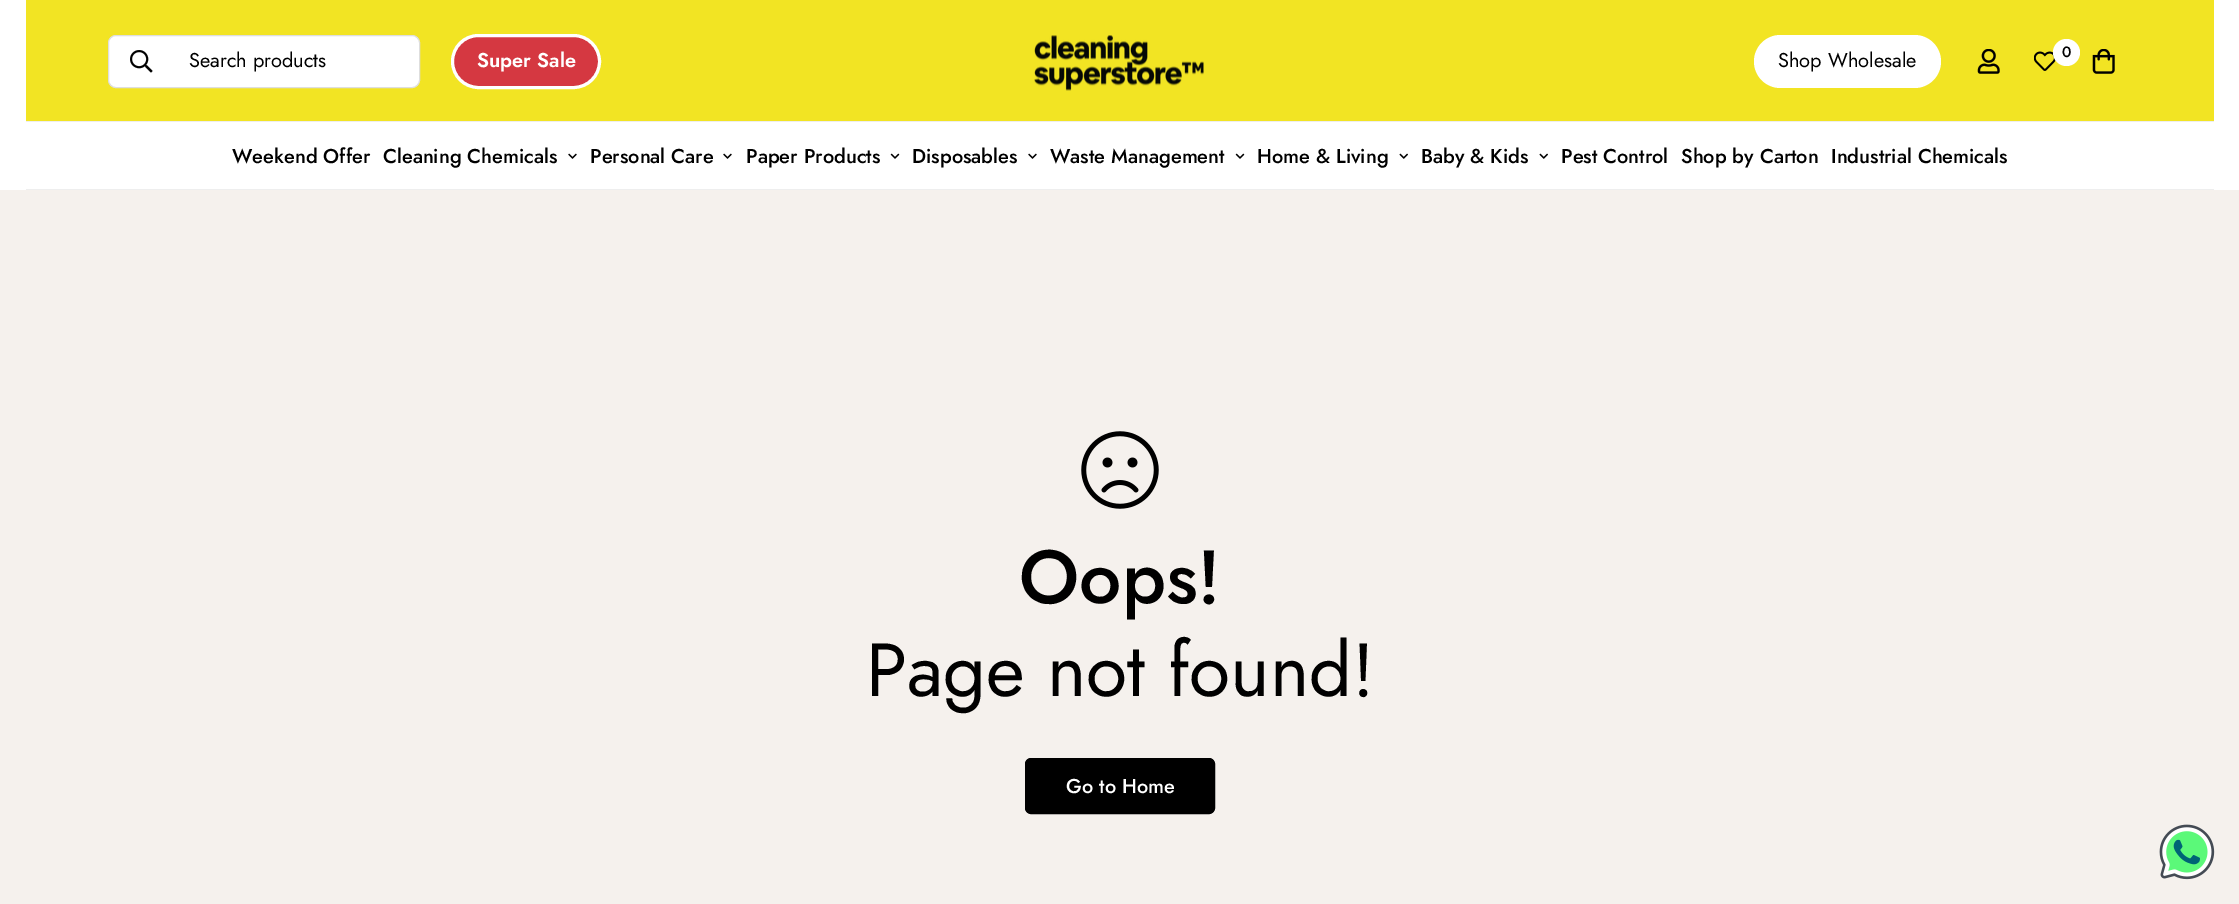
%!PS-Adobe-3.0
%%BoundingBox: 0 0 2239 904
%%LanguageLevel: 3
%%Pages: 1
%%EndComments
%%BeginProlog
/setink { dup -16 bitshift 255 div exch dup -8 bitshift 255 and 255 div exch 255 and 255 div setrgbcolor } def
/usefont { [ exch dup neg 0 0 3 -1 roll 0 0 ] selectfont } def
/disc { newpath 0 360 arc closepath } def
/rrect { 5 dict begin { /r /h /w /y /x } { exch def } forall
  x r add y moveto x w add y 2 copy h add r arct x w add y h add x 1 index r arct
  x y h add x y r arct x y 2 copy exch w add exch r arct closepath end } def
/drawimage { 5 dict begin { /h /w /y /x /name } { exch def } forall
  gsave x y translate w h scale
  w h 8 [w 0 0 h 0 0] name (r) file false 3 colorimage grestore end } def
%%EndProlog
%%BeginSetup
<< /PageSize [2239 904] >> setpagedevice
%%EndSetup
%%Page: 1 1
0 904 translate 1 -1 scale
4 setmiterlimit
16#FFFFFF setink
0 0 2239 904 rectfill
16#F2E423 setink
26 0 2188 121 rectfill
16#FFFFFF setink
108.5 35.5 311 52 7.5 rrect gsave fill grestore
16#DEDEDE setink
stroke
(img1.raw) 130 50 23 23 drawimage
/Jost-Regular 20 usefont
16#000000 setink
189 67 moveto (Search products) show
16#D53841 setink
452.5 35.5 147 52 26 rrect gsave fill grestore
16#FFFFFF setink
3 setlinewidth
stroke
/Jost-SemiBold 20 usefont
477 67 moveto (Super Sale) show
(img2.raw) 1034 35 170 56 drawimage
1754 35 187 53 26.5 rrect fill
/Jost-Regular 20 usefont
16#000000 setink
1778 67 moveto (Shop Wholesale) show
(img3.raw) 1977 49 23 25 drawimage
(img4.raw) 2034 51 22 20 drawimage
16#FFFFFF setink
2066.5 52.5 13.5 disc fill
/Jost-Medium 15 usefont
16#000000 setink
2062 57 moveto (0) show
(img5.raw) 2092 49 23 25 drawimage
16#EEEEEE setink
26 121 2188 1 rectfill
26 189 2188 1 rectfill
/Jost-Medium 20 usefont
16#000000 setink
232 163 moveto (Weekend Offer) show
383 163 moveto (Cleaning Chemicals) show
(img6.raw) 568 153 9 6 drawimage
590 163 moveto (Personal Care) show
(img6.raw) 723 153 9 6 drawimage
746 163 moveto (Paper Products) show
(img7.raw) 890 153 10 6 drawimage
912 163 moveto (Disposables) show
(img6.raw) 1028 153 9 6 drawimage
1050 163 moveto (Waste Management) show
(img7.raw) 1235 153 10 6 drawimage
1257 163 moveto (Home & Living) show
(img8.raw) 1399 153 9 6 drawimage
1421 163 moveto (Baby & Kids) show
(img8.raw) 1539 153 9 6 drawimage
[
    [(Pest Control) 1561 163]
    [(Shop by Carton) 1681 163]
    [(Industrial Chemicals) 1831 163]
] { aload pop moveto show } forall
16#F5F1ED setink
0 190 2239 714 rectfill
(img9.raw) 1081 431 78 78 drawimage
/Jost-Medium 75 usefont
16#000000 setink
1019 603 moveto (Oops!) show
/Jost-Regular 75 usefont
866 696 moveto (Page not found!) show
1025.5 758.5 189 55 5.5 rrect gsave fill grestore
1 setlinewidth
stroke
/Jost-Medium 20 usefont
16#FFFFFF setink
1066 793 moveto (Go to Home) show
(img10.raw) 2159 824 56 56 drawimage
showpage
%%EOF
